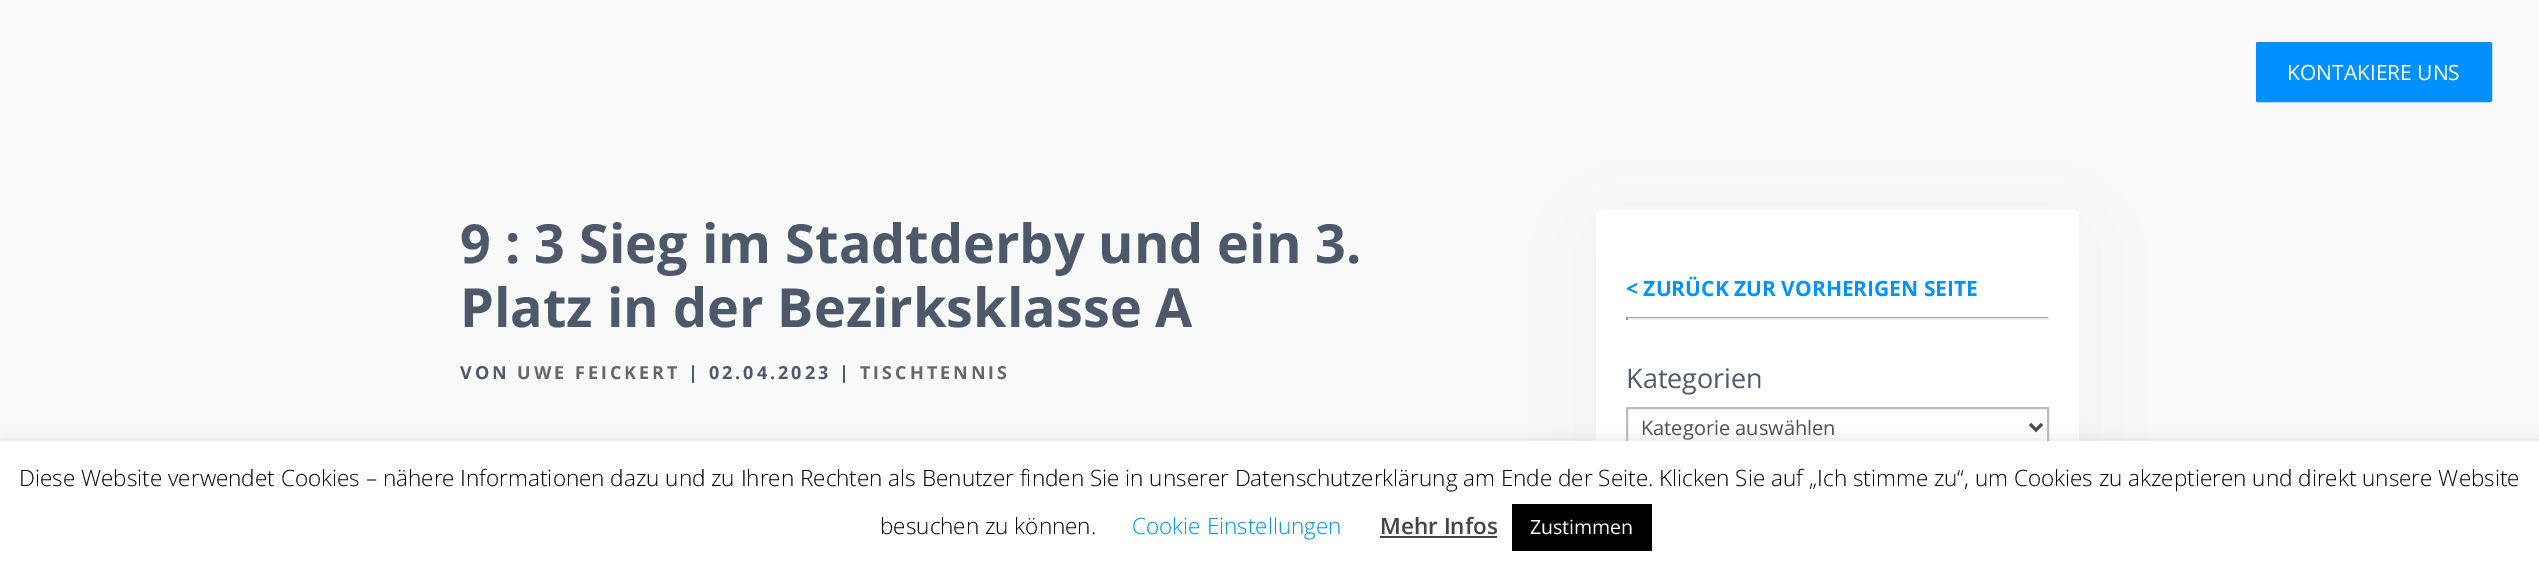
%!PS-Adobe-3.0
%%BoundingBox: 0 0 2539 576
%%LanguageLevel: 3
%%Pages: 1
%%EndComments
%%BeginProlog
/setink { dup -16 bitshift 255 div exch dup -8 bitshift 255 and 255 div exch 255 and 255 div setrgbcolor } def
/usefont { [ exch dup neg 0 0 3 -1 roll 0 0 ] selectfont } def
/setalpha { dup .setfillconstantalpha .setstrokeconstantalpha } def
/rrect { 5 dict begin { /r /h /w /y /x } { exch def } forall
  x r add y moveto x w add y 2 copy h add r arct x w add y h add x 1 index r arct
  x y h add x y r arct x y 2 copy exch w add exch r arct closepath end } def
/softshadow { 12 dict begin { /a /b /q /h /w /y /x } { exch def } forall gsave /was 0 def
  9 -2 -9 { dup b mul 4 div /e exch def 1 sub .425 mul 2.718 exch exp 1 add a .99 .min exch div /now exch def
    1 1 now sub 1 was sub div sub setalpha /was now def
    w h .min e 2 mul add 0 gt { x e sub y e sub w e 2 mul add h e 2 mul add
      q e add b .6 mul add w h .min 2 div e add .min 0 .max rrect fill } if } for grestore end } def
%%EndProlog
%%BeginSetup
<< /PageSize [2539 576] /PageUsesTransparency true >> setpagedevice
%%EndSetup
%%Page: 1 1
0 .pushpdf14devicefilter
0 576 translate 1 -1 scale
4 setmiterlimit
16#F9F9F9 setink
0 0 2539 576 rectfill
16#0090FF setink
2257 43 234 58 0.5 rrect gsave fill grestore
2 setlinewidth
stroke
/OpenSans-Regular 21 usefont
16#FFFFFF setink
2287 80 moveto (KONTAKIERE UNS) show
/OpenSans-Bold 54 usefont
16#4E586B setink
460 263 moveto (9 : 3 Sieg im Stadtderby und ein 3.) show
460 327 moveto (Platz in der Bezirksklasse A) show
/OpenSans-Bold 18 usefont
460 379 moveto 3 0 (VON) ashow
16#666666 setink
517 379 moveto 3 0 (UWE FEICKERT) ashow
16#4E586B setink
688 379 moveto 3 0 (| 02.04.2023 |) ashow
16#666666 setink
860 379 moveto 3 0 (TISCHTENNIS) ashow
16#000000 setink
1607 236 462 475 0 45 0.06 softshadow
16#FFFFFF setink
1596 210 483 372 6 rrect fill
/OpenSans-Bold 21 usefont
16#0090FF setink
1626 296 moveto (< ZURÜCK ZUR VORHERIGEN SEITE) show
[
    [1626 317 423 1 16#9F9F9F]
    [2048 317 2 3 16#EEEEEE]
    [1626 318 423 2 16#EEEEEE]
    [1626 317 2 3 16#9F9F9F]
] { aload pop setink rectfill } forall
/OpenSans-Regular 27 usefont
16#4E586B setink
1626 388 moveto (Kategorien) show
16#BBBBBB setink
1627 408 421 40 rectstroke
16#4E4E4E setink
3 setlinewidth
2030 424 moveto 2036 430 lineto 2042 424 lineto stroke
/OpenSans-Regular 20 usefont
1641 435 moveto (Kategorie auswählen) show
16#ACABAB setink
0 440 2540 135 0 7.5 0.3 softshadow
16#FFFFFF setink
0 441 2539 135 rectfill
/OpenSans-Light 22.5 usefont
16#000000 setink
19 486 moveto (Diese Website verwendet Cookies – nähere Informationen dazu und zu Ihren Rechten als Benutzer finden Sie in unserer Datenschutzerklärung am Ende der Seite. Klicken Sie auf „Ich stimme zu“, um Cookies zu akzeptieren und direkt unsere Website) show
880 534 moveto (besuchen zu können.) show
16#0090FF setink
1132 534 moveto (Cookie Einstellungen) show
/OpenSans-SemiBold 22.5 usefont
16#444444 setink
1380 534 moveto (Mehr Infos) show
1380 536 117 2 rectfill
16#000000 setink
1512 504 140 47 rectfill
/OpenSans-Regular 19.5 usefont
16#FFFFFF setink
1530 534 moveto (Zustimmen) show
.poppdf14devicefilter showpage
%%EOF
